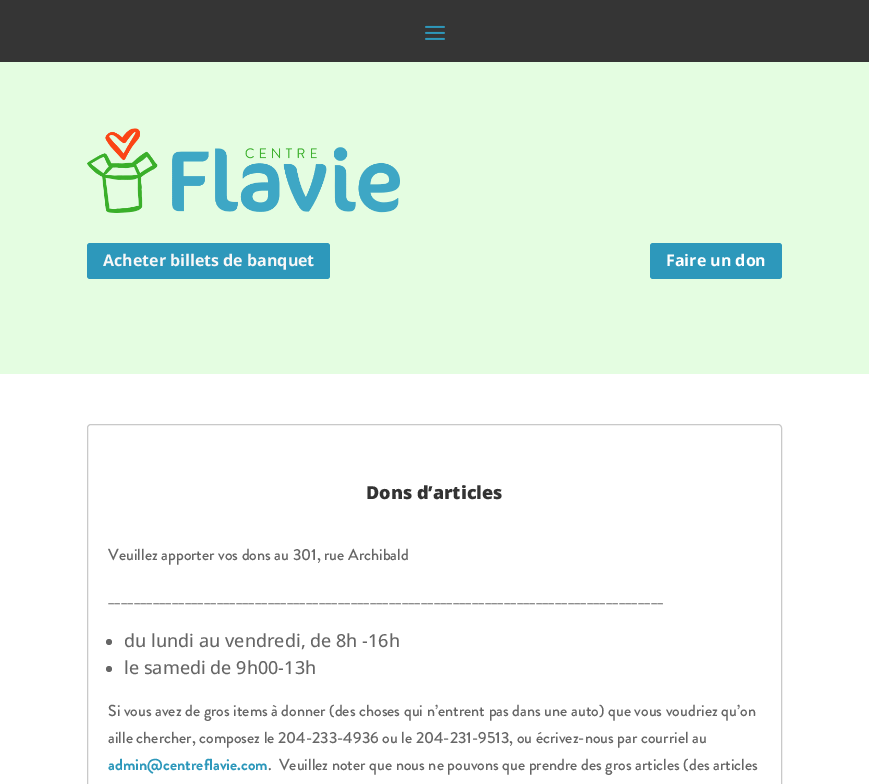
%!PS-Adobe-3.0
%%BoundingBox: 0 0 869 784
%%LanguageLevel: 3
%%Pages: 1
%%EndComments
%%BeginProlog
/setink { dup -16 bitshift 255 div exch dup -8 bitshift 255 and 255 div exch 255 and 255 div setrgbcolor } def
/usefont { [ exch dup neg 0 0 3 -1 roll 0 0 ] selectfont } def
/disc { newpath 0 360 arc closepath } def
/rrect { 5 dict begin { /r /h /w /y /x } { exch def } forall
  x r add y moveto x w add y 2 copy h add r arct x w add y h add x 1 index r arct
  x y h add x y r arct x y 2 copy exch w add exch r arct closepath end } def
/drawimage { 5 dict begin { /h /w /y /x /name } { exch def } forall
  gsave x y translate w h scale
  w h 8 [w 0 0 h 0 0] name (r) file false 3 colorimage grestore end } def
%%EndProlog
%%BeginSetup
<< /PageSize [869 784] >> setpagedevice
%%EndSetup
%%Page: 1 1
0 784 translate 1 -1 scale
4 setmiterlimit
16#FFFFFF setink
0 0 869 784 rectfill
16#353535 setink
0 0 869 62 rectfill
(img1.raw) 425 25 20 15 drawimage
16#E4FDE1 setink
0 62 869 312 rectfill
(img2.raw) 87 128 313 85 drawimage
16#2D98BB setink
87 243 243 36 3 rrect fill
/OpenSans-Bold 16 usefont
16#F7F7F7 setink
103 266 moveto (Acheter billets de banquet) show
16#2D98BB setink
650 243 132 36 3 rrect fill
16#FFFFFF setink
666 266 moveto (Faire un don) show
16#C9C9C9 setink
87.5 424.5 694 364 3.5 rrect stroke
/OpenSans-ExtraBold 18 usefont
16#333333 setink
366 499 moveto (Dons d’articles) show
/BrandonGrotesque-Medium 16 usefont
16#666666 setink
108 560 moveto (Veuillez apporter vos dons au 301, rue Archibald) show
108 603 moveto (_______________________________________________________________________________________) show
109 642 3 disc fill
/OpenSans-Medium 18 usefont
124 647 moveto (du lundi au vendredi, de 8h -16h) show
109 669 3 disc fill
124 674 moveto (le samedi de 9h00-13h) show
/BrandonGrotesque-Medium 16 usefont
108 716 moveto (Si vous avez de gros items à donner \(des choses qui n’entrent pas dans une auto\) que vous voudriez qu’on) show
108 743 moveto (aille chercher, composez le 204-233-4936 ou le 204-231-9513, ou écrivez-nous par courriel au) show
/BrandonGrotesque-Bold 16 usefont
16#2D98BB setink
108 770 moveto (admin@centreflavie.com) show
/BrandonGrotesque-Medium 16 usefont
16#666666 setink
268 770 moveto (.  Veuillez noter que nous ne pouvons que prendre des gros articles \(des articles) show
showpage
%%EOF
